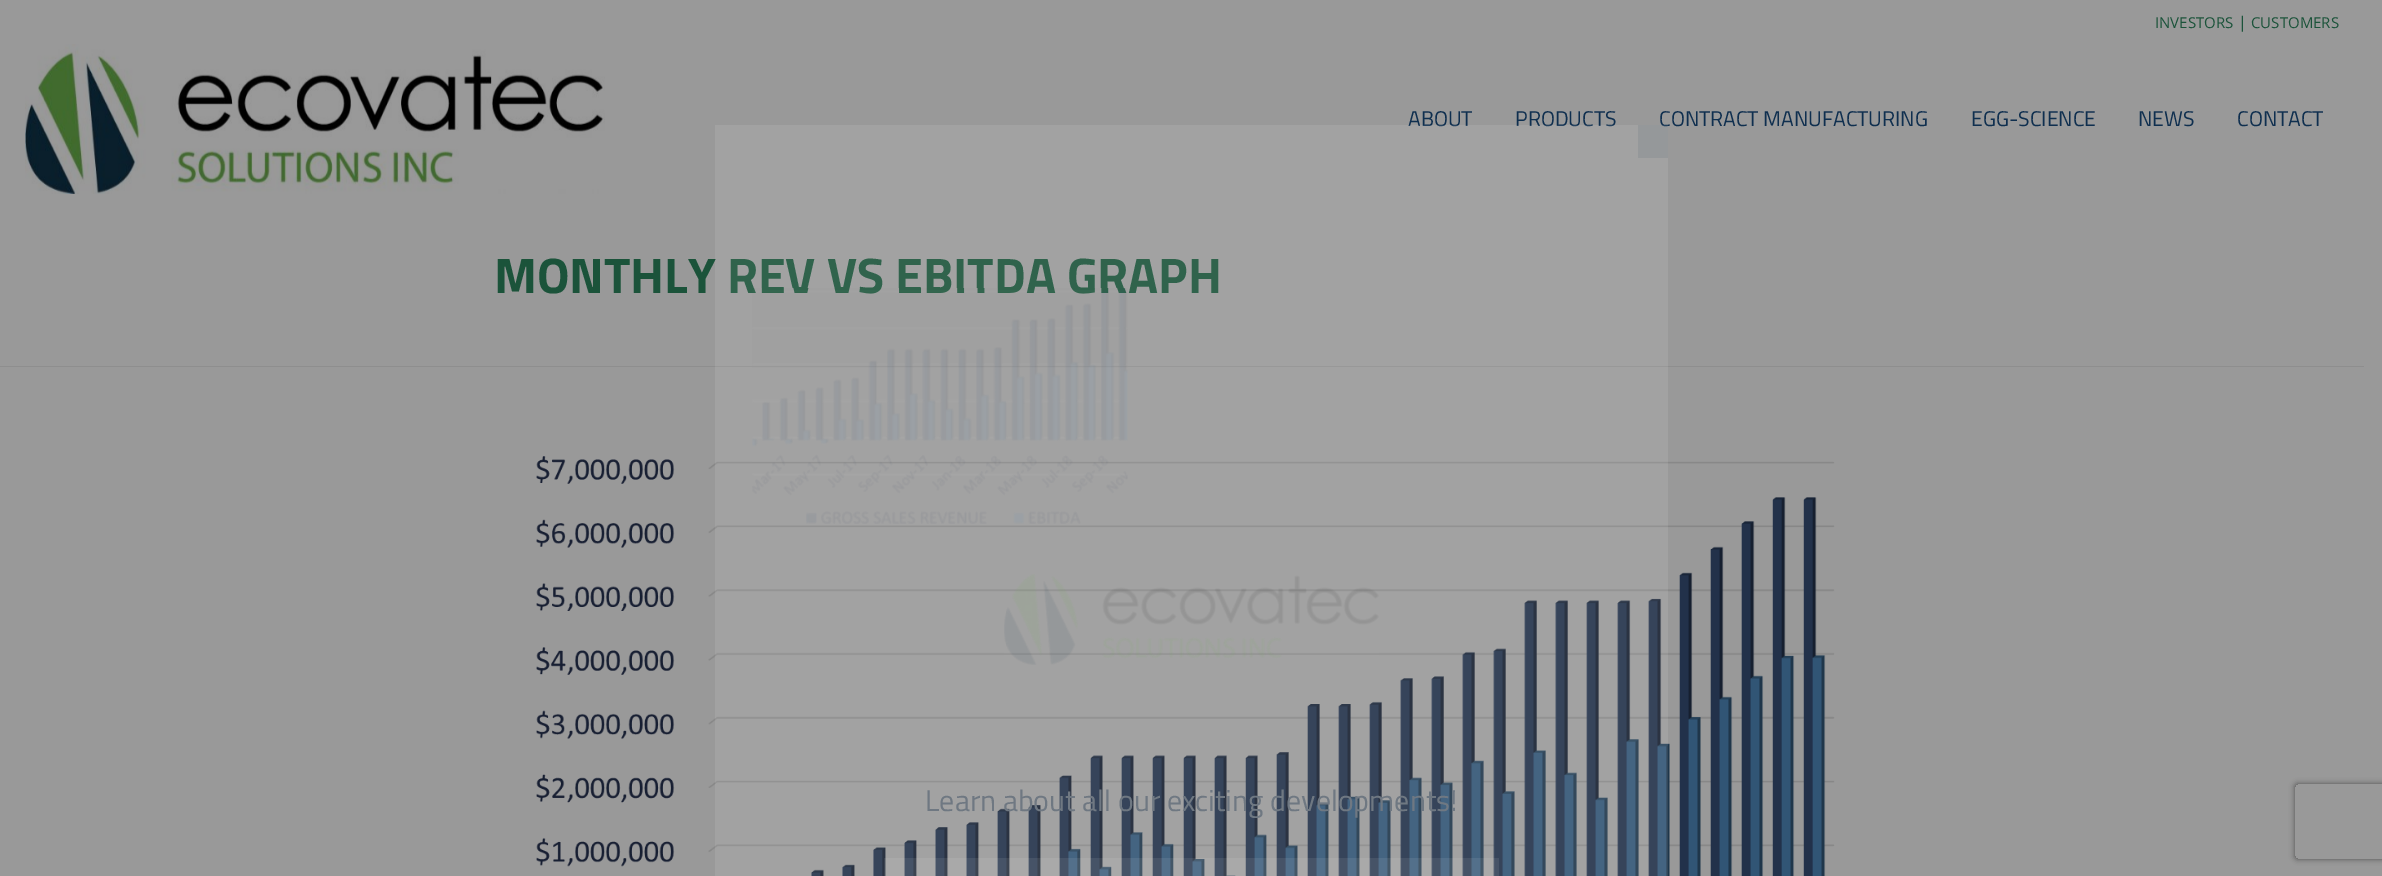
%!PS-Adobe-3.0
%%BoundingBox: 0 0 2382 876
%%LanguageLevel: 3
%%Pages: 1
%%EndComments
%%BeginProlog
/setink { dup -16 bitshift 255 div exch dup -8 bitshift 255 and 255 div exch 255 and 255 div setrgbcolor } def
/usefont { [ exch dup neg 0 0 3 -1 roll 0 0 ] selectfont } def
/setalpha { dup .setfillconstantalpha .setstrokeconstantalpha } def
/rrect { 5 dict begin { /r /h /w /y /x } { exch def } forall
  x r add y moveto x w add y 2 copy h add r arct x w add y h add x 1 index r arct
  x y h add x y r arct x y 2 copy exch w add exch r arct closepath end } def
/softshadow { 12 dict begin { /a /b /q /h /w /y /x } { exch def } forall gsave /was 0 def
  9 -2 -9 { dup b mul 4 div /e exch def 1 sub .425 mul 2.718 exch exp 1 add a .99 .min exch div /now exch def
    1 1 now sub 1 was sub div sub setalpha /was now def
    w h .min e 2 mul add 0 gt { x e sub y e sub w e 2 mul add h e 2 mul add
      q e add b .6 mul add w h .min 2 div e add .min 0 .max rrect fill } if } for grestore end } def
/drawimage { 5 dict begin { /h /w /y /x /name } { exch def } forall
  gsave x y translate w h scale
  w h 8 [w 0 0 h 0 0] name (r) file false 3 colorimage grestore end } def
%%EndProlog
%%BeginSetup
<< /PageSize [2382 876] /PageUsesTransparency true >> setpagedevice
%%EndSetup
%%Page: 1 1
0 .pushpdf14devicefilter
0 876 translate 1 -1 scale
4 setmiterlimit
16#999999 setink
0 0 2382 876 rectfill
16#8E8E8E setink
0 366 2364 1 rectfill
/OpenSans-Regular 15 usefont
16#1B533A setink
2155 28 moveto (INVESTORS) show
/OpenSans-Regular 16 usefont
2238 28 moveto (|) show
/OpenSans-Regular 15 usefont
2251 28 moveto (CUSTOMERS) show
(img1.raw) 25 44 580 150 drawimage
/TitilliumWeb-Regular 21.25 usefont
16#0F2F4F setink
[
    [(ABOUT) 1408 126]
    [(PRODUCTS) 1515 126]
    [(CONTRACT MANUFACTURING) 1659 126]
    [(EGG-SCIENCE) 1971 126]
    [(NEWS) 2138 126]
    [(CONTACT) 2237 126]
] { aload pop moveto show } forall
/TitilliumWeb-Bold 50 usefont
16#1B533A setink
494 293 moveto (MONTHLY REV VS EBITDA GRAPH) show
(img2.raw) 536 456 1299 420 drawimage
0.09 setalpha
16#FFFFFF setink
715 125 953 751 rectfill
16#103349 setink
1638 125 30 33 rectfill
1 setalpha
(img3.raw) 752 288 376 236 drawimage
(img4.raw) 1004 574 375 91 drawimage
/TitilliumWeb-Regular 30 usefont
16#6F7882 setink
925 811 moveto (Learn about all our exciting developments!) show
0.09 setalpha
16#EBEBEB setink
884 858 615 18 rectfill
gsave
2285 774 moveto 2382 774 lineto 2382 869 lineto 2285 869 lineto closepath 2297.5 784 moveto 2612.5 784 lineto 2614 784 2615 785 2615 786.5 curveto 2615 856.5 lineto 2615 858 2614 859 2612.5 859 curveto 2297.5 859 lineto 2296 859 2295 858 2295 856.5 curveto 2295 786.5 lineto 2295 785 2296 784 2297.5 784 curveto closepath eoclip newpath
1 setalpha
16#4D4D4D setink
2295 784 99 75 2.5 3 1 softshadow
grestore
.poppdf14devicefilter showpage
%%EOF
